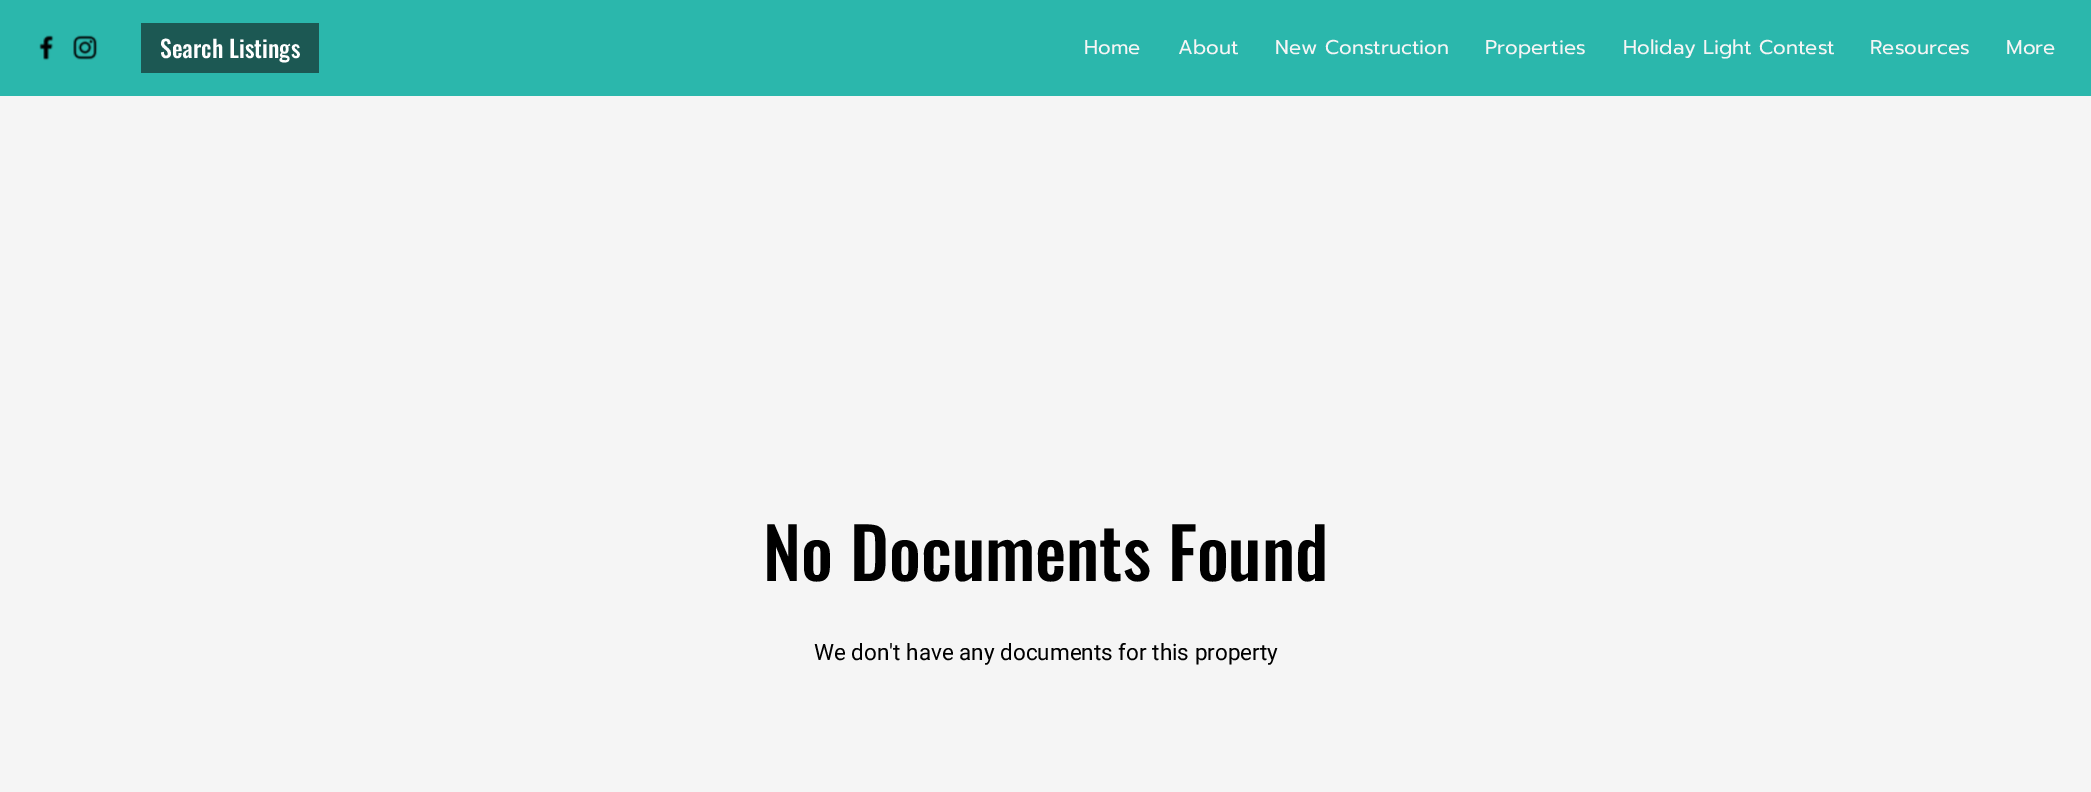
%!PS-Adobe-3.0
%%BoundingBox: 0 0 2091 792
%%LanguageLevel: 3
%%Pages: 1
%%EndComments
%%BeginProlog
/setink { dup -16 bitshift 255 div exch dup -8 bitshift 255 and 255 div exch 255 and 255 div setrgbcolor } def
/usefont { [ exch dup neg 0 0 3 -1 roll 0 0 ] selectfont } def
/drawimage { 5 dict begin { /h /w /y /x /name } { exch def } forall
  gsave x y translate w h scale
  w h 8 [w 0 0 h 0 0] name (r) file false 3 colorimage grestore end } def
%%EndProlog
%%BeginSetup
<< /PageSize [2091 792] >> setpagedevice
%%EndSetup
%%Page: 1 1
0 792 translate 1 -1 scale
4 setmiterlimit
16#F5F5F5 setink
0 0 2091 792 rectfill
16#2BB7AC setink
0 0 2091 96 rectfill
(img1.raw) 39 35 15 26 drawimage
(img2.raw) 73 35 25 25 drawimage
16#1C5853 setink
141 23 178 50 rectfill
/Oswald-Medium 23.75 usefont
16#FFFFFF setink
160 58 moveto (Search Listings) show
/Prompt-Regular 20 usefont
16#F5F5F5 setink
[
    [(Home) 1084 54]
    [(About) 1178 54]
    [(New Construction) 1275 54]
    [(Properties) 1485 54]
    [(Holiday Light Contest) 1623 54]
    [(Resources) 1870 54]
    [(More) 2006 54]
] { aload pop moveto show } forall
/Oswald-Medium 70 usefont
16#000000 setink
763 581 moveto (No Documents Found) show
/Roboto-Regular 22.5 usefont
814 660 moveto (We don't have any documents for this property) show
showpage
%%EOF
